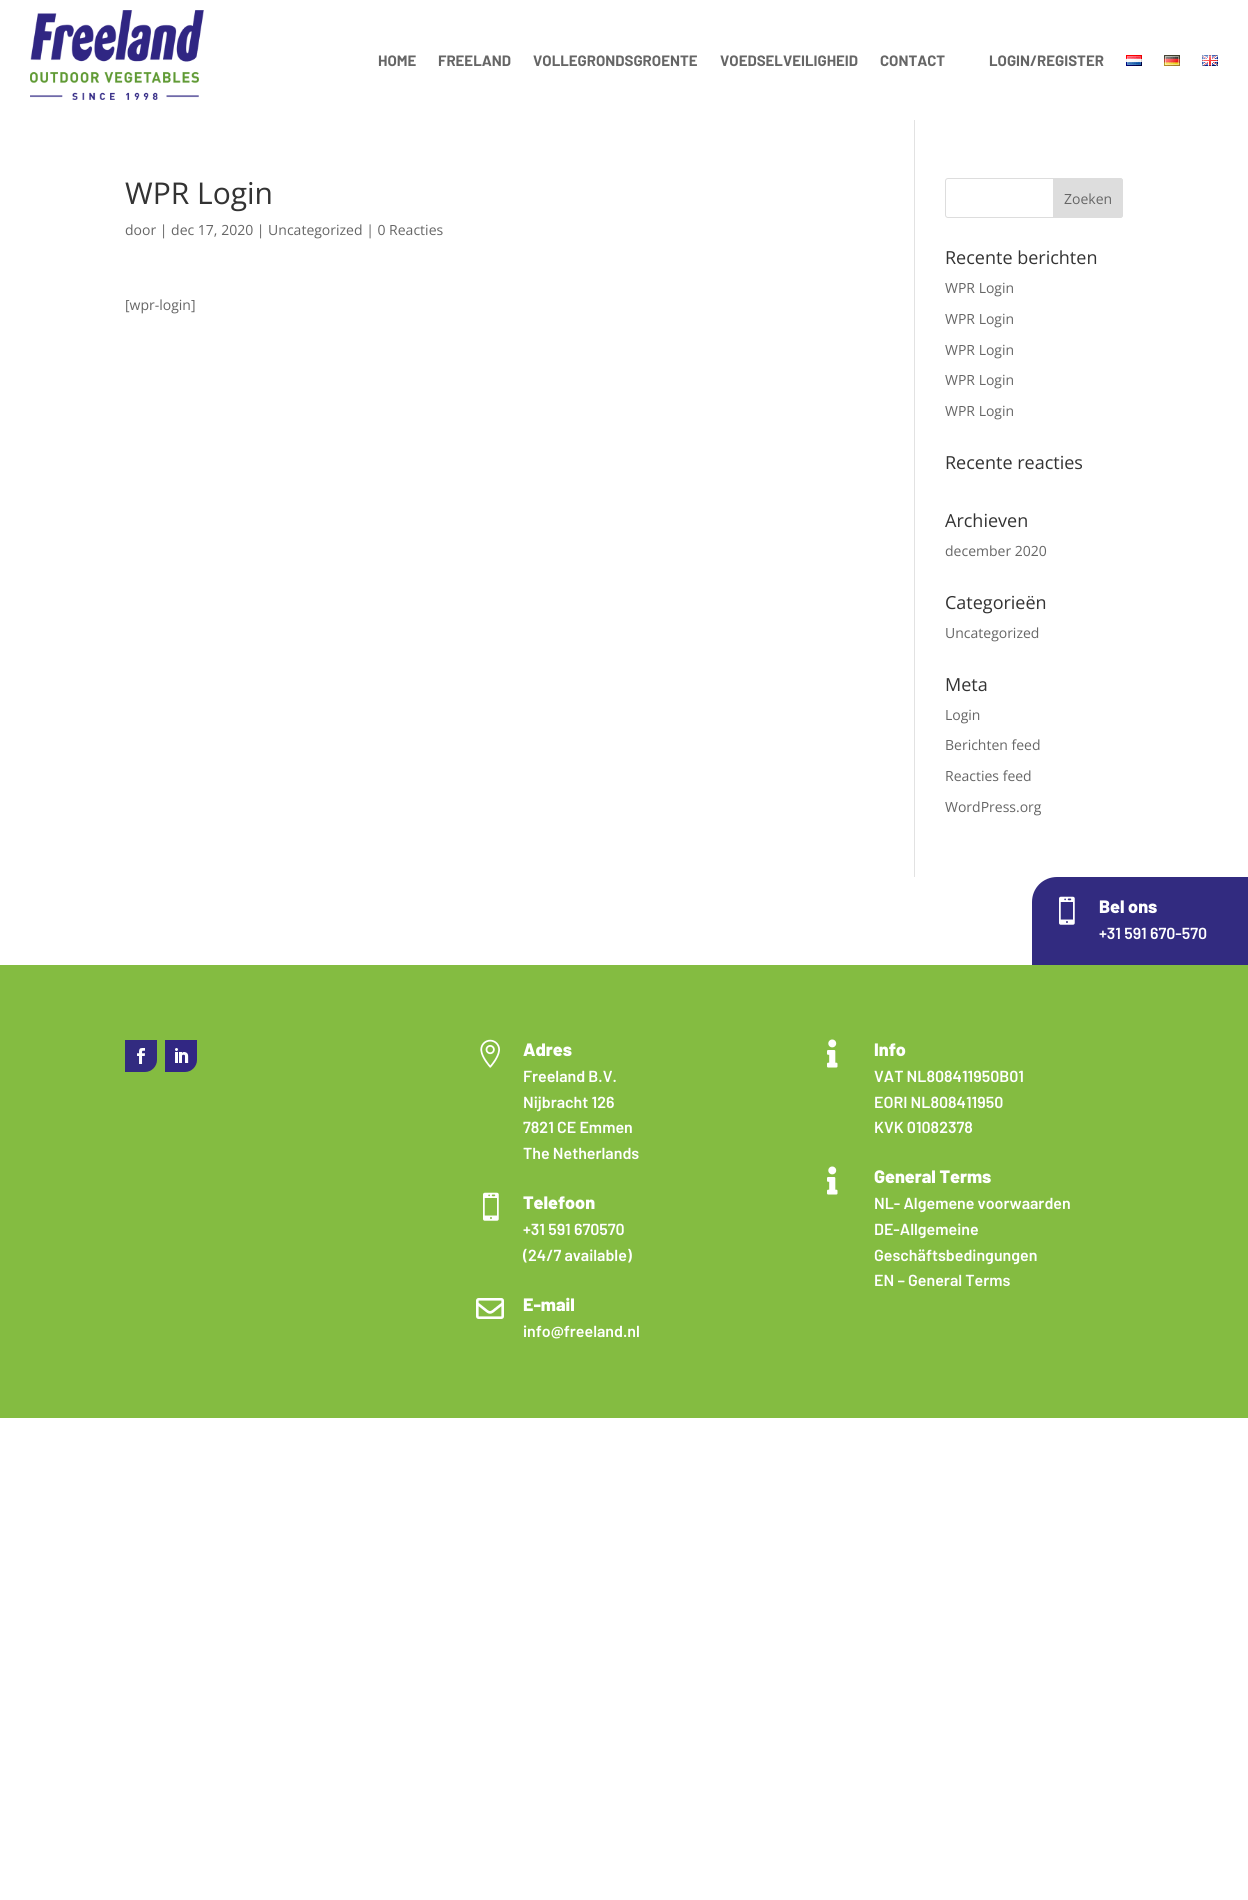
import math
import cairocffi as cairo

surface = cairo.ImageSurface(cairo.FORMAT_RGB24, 1248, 1900)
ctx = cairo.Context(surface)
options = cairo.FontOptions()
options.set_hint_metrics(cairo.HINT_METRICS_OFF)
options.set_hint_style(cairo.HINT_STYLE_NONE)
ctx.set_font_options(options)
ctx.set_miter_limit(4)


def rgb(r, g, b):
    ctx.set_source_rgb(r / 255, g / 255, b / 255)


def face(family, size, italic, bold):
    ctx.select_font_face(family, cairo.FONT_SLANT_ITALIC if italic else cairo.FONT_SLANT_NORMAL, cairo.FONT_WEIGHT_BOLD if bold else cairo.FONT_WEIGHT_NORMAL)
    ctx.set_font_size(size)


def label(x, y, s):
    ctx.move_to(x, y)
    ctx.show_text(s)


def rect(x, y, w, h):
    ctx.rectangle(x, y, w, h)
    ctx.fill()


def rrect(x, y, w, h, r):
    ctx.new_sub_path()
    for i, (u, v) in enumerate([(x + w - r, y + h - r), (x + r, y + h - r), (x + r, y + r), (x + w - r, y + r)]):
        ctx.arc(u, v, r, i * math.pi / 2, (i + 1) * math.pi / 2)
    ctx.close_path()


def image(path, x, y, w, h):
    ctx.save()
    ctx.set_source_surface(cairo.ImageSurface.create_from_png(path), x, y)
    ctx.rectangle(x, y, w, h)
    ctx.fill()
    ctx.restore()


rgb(255, 255, 255)
ctx.paint()
image('image0.png', 30, 10, 174, 90)
face('Barlow', 15, 0, 1)
rgb(102, 102, 102)
label(378, 66, 'HOME')
label(438, 66, 'FREELAND')
label(533, 66, 'VOLLEGRONDSGROENTE')
label(720, 66, 'VOEDSELVEILIGHEID')
label(880, 66, 'CONTACT')
label(989, 66, 'LOGIN/REGISTER')
image('image1.png', 1126, 55, 16, 11)
image('image2.png', 1164, 55, 16, 11)
image('image3.png', 1202, 55, 16, 11)
rgb(226, 226, 226)
rect(914, 120, 1, 757)
face('Open Sans', 30, 0, 0)
rgb(51, 51, 51)
label(125, 204, 'WPR Login')
face('Open Sans', 14, 0, 0)
rgb(102, 102, 102)
label(125, 235, 'door | dec 17, 2020 | Uncategorized | 0 Reacties')
label(125, 310, '[wpr-login]')
rrect(945.5, 178.5, 177, 39, 2.5)
rgb(221, 221, 221)
ctx.set_line_width(1)
ctx.stroke()
ctx.new_path()
ctx.move_to(1053.5, 178.5)
ctx.line_to(1120, 178.5)
ctx.curve_to(1121.5, 178.5, 1122.5, 179.5, 1122.5, 181)
ctx.line_to(1122.5, 215)
ctx.curve_to(1122.5, 216.5, 1121.5, 217.5, 1120, 217.5)
ctx.line_to(1053.5, 217.5)
ctx.close_path()
ctx.fill_preserve()
ctx.stroke()
rgb(102, 102, 102)
label(1064, 204, 'Zoeken')
face('Open Sans', 18, 0, 0)
rgb(51, 51, 51)
label(945, 264, 'Recente berichten')
face('Open Sans', 14, 0, 0)
rgb(102, 102, 102)
label(945, 293, 'WPR Login')
label(945, 324, 'WPR Login')
label(945, 355, 'WPR Login')
label(945, 385, 'WPR Login')
label(945, 416, 'WPR Login')
face('Open Sans', 18, 0, 0)
rgb(51, 51, 51)
label(945, 469, 'Recente reacties')
label(945, 527, 'Archieven')
face('Open Sans', 14, 0, 0)
rgb(102, 102, 102)
label(945, 556, 'december 2020')
face('Open Sans', 18, 0, 0)
rgb(51, 51, 51)
label(945, 609, 'Categorieën')
face('Open Sans', 14, 0, 0)
rgb(102, 102, 102)
label(945, 638, 'Uncategorized')
face('Open Sans', 18, 0, 0)
rgb(51, 51, 51)
label(945, 691, 'Meta')
face('Open Sans', 14, 0, 0)
rgb(102, 102, 102)
label(945, 720, 'Login')
label(945, 750, 'Berichten feed')
label(945, 781, 'Reacties feed')
label(945, 812, 'WordPress.org')
rgb(50, 43, 128)
ctx.new_path()
ctx.move_to(1057, 877)
ctx.line_to(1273, 877)
ctx.line_to(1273, 965)
ctx.line_to(1032, 965)
ctx.line_to(1032, 902)
ctx.curve_to(1032, 888, 1043, 877, 1057, 877)
ctx.close_path()
ctx.fill()
image('image4.png', 1059, 896, 16, 29)
face('Barlow ExtraBold', 18, 0, 0)
rgb(255, 255, 255)
label(1099, 913, 'Bel ons')
face('Barlow SemiBold', 16, 0, 0)
label(1099, 939, '+31 591 670-570')
rgb(132, 188, 65)
rect(0, 965, 1248, 453)
rgb(50, 43, 128)
ctx.new_path()
ctx.move_to(125, 1040)
ctx.line_to(157, 1040)
ctx.line_to(157, 1060)
ctx.curve_to(157, 1066.5, 151.5, 1072, 145, 1072)
ctx.line_to(125, 1072)
ctx.close_path()
ctx.fill()
image('image5.png', 137, 1048, 8, 16)
rgb(49, 39, 131)
ctx.new_path()
ctx.move_to(165, 1040)
ctx.line_to(197, 1040)
ctx.line_to(197, 1060)
ctx.curve_to(197, 1066.5, 191.5, 1072, 185, 1072)
ctx.line_to(165, 1072)
ctx.close_path()
ctx.fill()
image('image6.png', 175, 1048, 14, 15)
image('image7.png', 480, 1039, 20, 29)
face('Barlow ExtraBold', 18, 0, 0)
rgb(255, 255, 255)
label(523, 1056, 'Adres')
face('Barlow SemiBold', 16, 0, 0)
label(523, 1082, 'Freeland B.V.')
label(523, 1108, 'Nijbracht 126')
label(523, 1133, '7821 CE Emmen')
label(523, 1159, 'The Netherlands')
image('image8.png', 483, 1192, 16, 29)
face('Barlow ExtraBold', 18, 0, 0)
label(523, 1209, 'Telefoon')
face('Barlow SemiBold', 16, 0, 0)
label(523, 1235, '+31 591 670570')
label(523, 1261, '(24/7 available)')
image('image9.png', 476, 1298, 28, 21)
face('Barlow ExtraBold', 18, 0, 0)
label(523, 1311, 'E-mail')
face('Barlow SemiBold', 16, 0, 0)
label(523, 1337, 'info@freeland.nl')
image('image10.png', 827, 1039, 11, 29)
face('Barlow ExtraBold', 18, 0, 0)
label(874, 1056, 'Info')
face('Barlow SemiBold', 16, 0, 0)
label(874, 1082, 'VAT NL808411950B01')
label(874, 1108, 'EORI NL808411950')
label(874, 1133, 'KVK 01082378')
image('image10.png', 827, 1166, 11, 29)
face('Barlow ExtraBold', 18, 0, 0)
label(874, 1183, 'General Terms')
face('Barlow SemiBold', 16, 0, 0)
label(874, 1209, 'NL- Algemene voorwaarden')
label(874, 1235, 'DE-Allgemeine')
label(874, 1261, 'Geschäftsbedingungen')
label(874, 1286, 'EN – General Terms')
surface.write_to_png('render.png')
